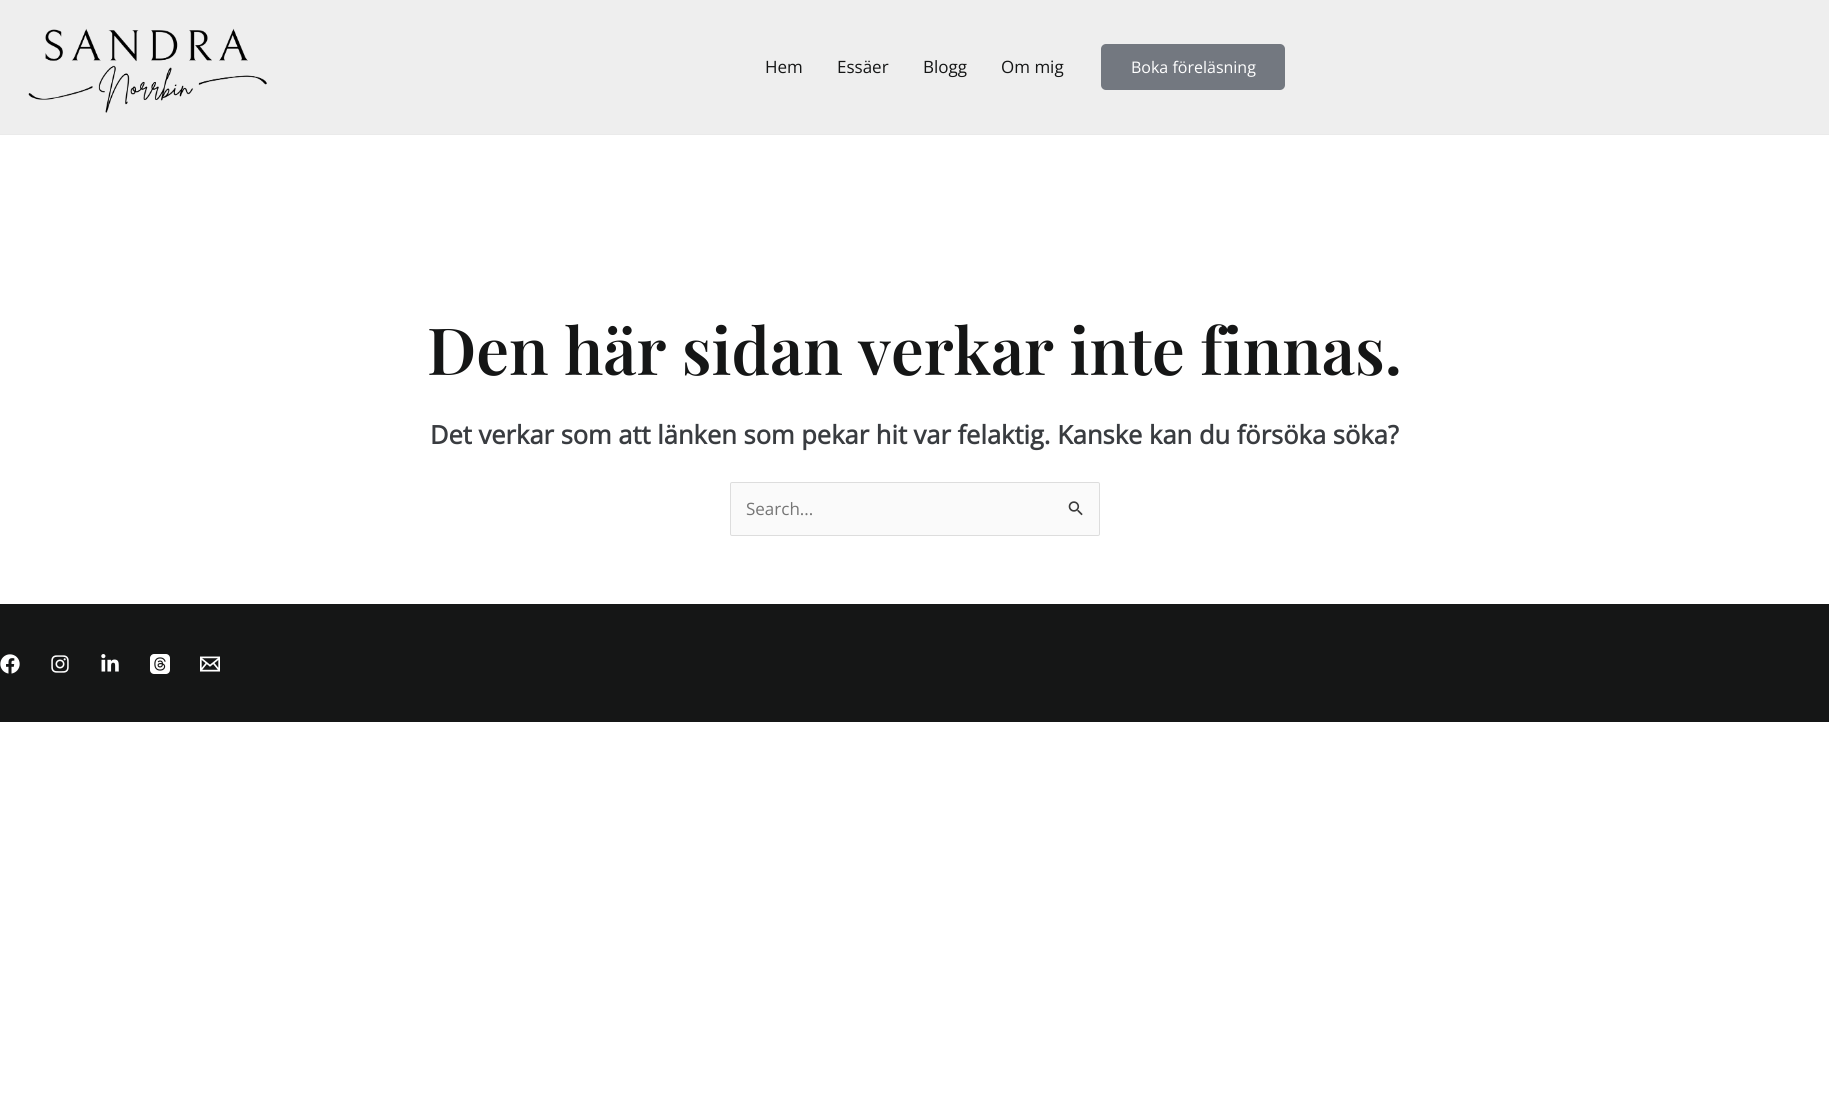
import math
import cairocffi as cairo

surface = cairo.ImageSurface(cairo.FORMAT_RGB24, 1829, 1117)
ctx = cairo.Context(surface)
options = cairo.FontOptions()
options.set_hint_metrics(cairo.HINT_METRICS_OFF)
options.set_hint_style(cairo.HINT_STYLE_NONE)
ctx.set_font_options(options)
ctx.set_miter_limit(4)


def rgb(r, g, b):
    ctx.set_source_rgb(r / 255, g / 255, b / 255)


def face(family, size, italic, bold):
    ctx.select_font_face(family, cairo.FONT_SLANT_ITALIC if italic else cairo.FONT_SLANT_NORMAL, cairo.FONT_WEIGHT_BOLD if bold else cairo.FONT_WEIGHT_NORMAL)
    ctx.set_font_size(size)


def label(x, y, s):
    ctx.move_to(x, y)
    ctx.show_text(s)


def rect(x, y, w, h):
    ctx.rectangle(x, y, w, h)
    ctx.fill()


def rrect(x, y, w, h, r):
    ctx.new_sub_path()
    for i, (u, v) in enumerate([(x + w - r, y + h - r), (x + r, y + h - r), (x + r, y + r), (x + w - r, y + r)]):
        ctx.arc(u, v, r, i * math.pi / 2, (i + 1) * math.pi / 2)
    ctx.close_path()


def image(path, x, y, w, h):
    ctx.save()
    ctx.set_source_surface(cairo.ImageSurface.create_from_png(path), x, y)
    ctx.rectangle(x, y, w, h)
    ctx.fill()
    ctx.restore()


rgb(255, 255, 255)
ctx.paint()
rgb(238, 238, 238)
rect(0, 0, 1829, 134)
rgb(234, 234, 234)
rect(0, 134, 1829, 1)
image('image0.png', 28, 28, 239, 85)
face('Open Sans', 17, 0, 0)
rgb(21, 22, 22)
label(765, 73, 'Hem')
label(837, 73, 'Essäer')
label(923, 73, 'Blogg')
label(1001, 73, 'Om mig')
rgb(115, 120, 128)
rrect(1101, 44, 184, 46, 5)
ctx.fill()
face('Open Sans', 16, 0, 0)
rgb(255, 255, 255)
label(1131, 73, 'Boka föreläsning')
face('Playfair Display SemiBold', 65, 0, 0)
rgb(21, 22, 22)
label(427, 375, 'Den här sidan verkar inte finnas.')
face('Open Sans', 25.5, 0, 1)
rgb(57, 60, 64)
label(430, 444, 'Det verkar som att länken som pekar hit var felaktig. Kanske kan du försöka söka?')
rgb(250, 250, 250)
rrect(730.5, 482.5, 369, 53, 1.5)
ctx.fill_preserve()
rgb(221, 221, 221)
ctx.set_line_width(1)
ctx.stroke()
face('Open Sans', 17, 0, 0)
rgb(117, 117, 117)
label(746, 515, 'Search...')
image('image1.png', 1068, 501, 15, 15)
rgb(21, 22, 22)
rect(0, 604, 1829, 118)
image('image2.png', 0, 654, 20, 20)
image('image3.png', 51, 655, 18, 18)
image('image4.png', 101, 654, 18, 18)
image('image5.png', 150, 654, 20, 20)
image('image6.png', 200, 656, 20, 16)
surface.write_to_png('render.png')
